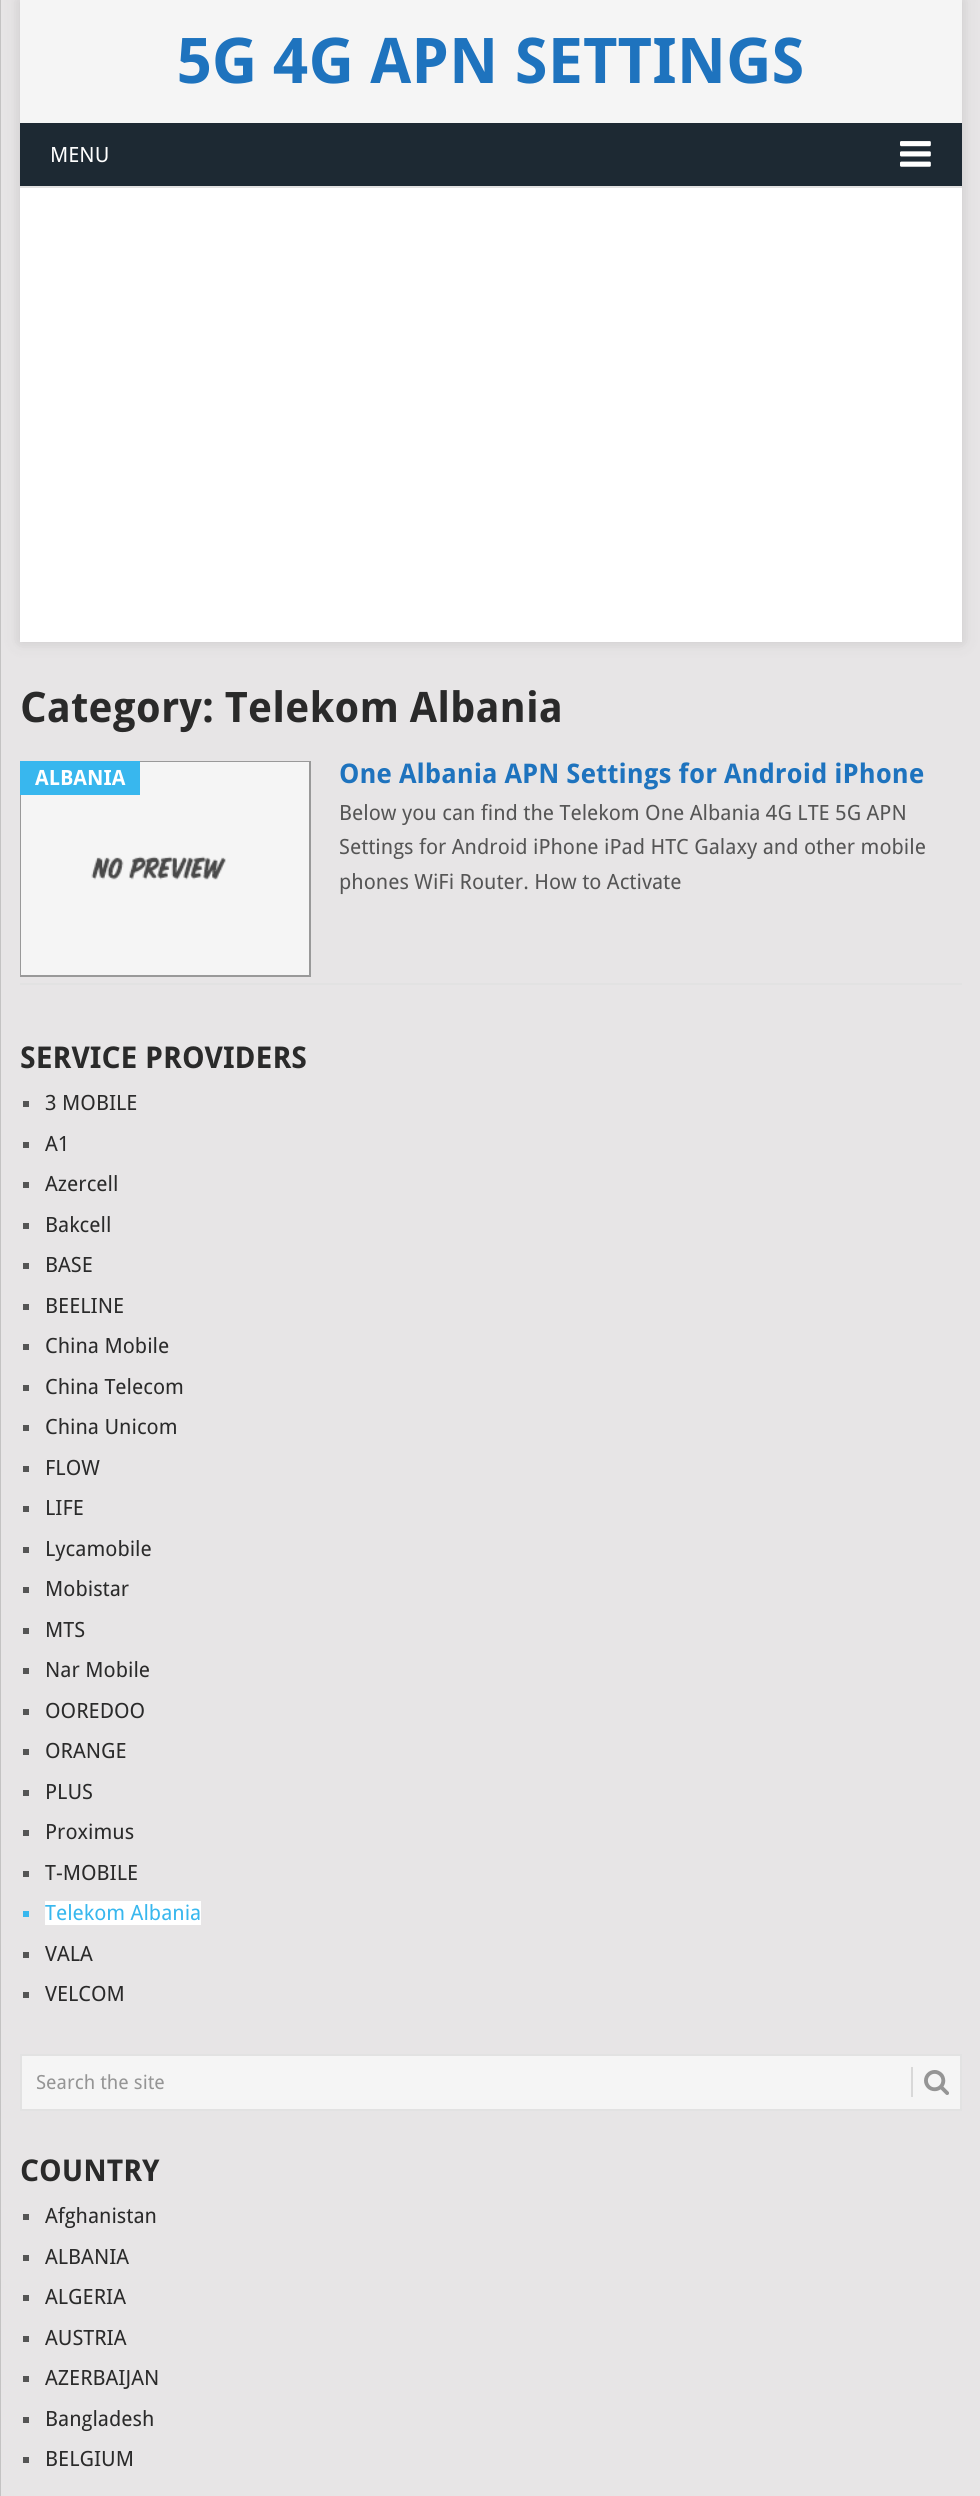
import math
import cairocffi as cairo

surface = cairo.ImageSurface(cairo.FORMAT_RGB24, 980, 2496)
ctx = cairo.Context(surface)
options = cairo.FontOptions()
options.set_hint_metrics(cairo.HINT_METRICS_OFF)
options.set_hint_style(cairo.HINT_STYLE_NONE)
ctx.set_font_options(options)
ctx.set_miter_limit(4)


def rgb(r, g, b):
    ctx.set_source_rgb(r / 255, g / 255, b / 255)


def face(family, size, italic, bold):
    ctx.select_font_face(family, cairo.FONT_SLANT_ITALIC if italic else cairo.FONT_SLANT_NORMAL, cairo.FONT_WEIGHT_BOLD if bold else cairo.FONT_WEIGHT_NORMAL)
    ctx.set_font_size(size)


def label(x, y, s):
    ctx.move_to(x, y)
    ctx.show_text(s)


def rect(x, y, w, h):
    ctx.rectangle(x, y, w, h)
    ctx.fill()


def rrect(x, y, w, h, r):
    ctx.new_sub_path()
    for i, (u, v) in enumerate([(x + w - r, y + h - r), (x + r, y + h - r), (x + r, y + r), (x + w - r, y + r)]):
        ctx.arc(u, v, r, i * math.pi / 2, (i + 1) * math.pi / 2)
    ctx.close_path()


def soft_shadow(x, y, w, h, r, blur, alpha):
    ctx.push_group_with_content(cairo.CONTENT_ALPHA)
    ctx.set_operator(cairo.OPERATOR_SOURCE)
    for i in range(15, -16, -2):
        e = blur * i / 6
        if min(w, h) + 2 * e > 0:
            ctx.set_source_rgba(0, 0, 0, alpha * math.erfc((i - 1) / 8.5) / 2)
            rrect(x - e, y - e, w + 2 * e, h + 2 * e, max(0, min(r + e + blur * .6, min(w, h) / 2 + e)))
            ctx.fill()
    ctx.mask(ctx.pop_group())


def image(path, x, y, w, h):
    ctx.save()
    ctx.set_source_surface(cairo.ImageSurface.create_from_png(path), x, y)
    ctx.rectangle(x, y, w, h)
    ctx.fill()
    ctx.restore()


rgb(231, 229, 230)
ctx.paint()
rgb(50, 50, 50)
soft_shadow(20, 0, 942, 642, 0, 7.5, 0.17)
rgb(255, 255, 255)
rect(20, 188, 942, 454)
rgb(245, 245, 245)
rect(20, 0, 942, 123)
rgb(196, 195, 195)
rect(0, 0, 1, 2496)
face('Droid Sans', 63, 0, 1)
rgb(30, 115, 190)
label(177, 83, '5G 4G APN SETTINGS')
rgb(29, 41, 51)
rect(20, 123, 942, 63)
face('Droid Sans', 21, 0, 0)
rgb(255, 255, 255)
label(50, 162, 'MENU')
image('image0.png', 900, 141, 31, 26)
rgb(226, 226, 226)
rect(20, 186, 942, 2)
face('Droid Sans', 42, 0, 1)
rgb(42, 42, 42)
label(20, 722, 'Category: Telekom Albania')
rgb(226, 226, 226)
rect(20, 983, 942, 2)
ctx.rectangle(21, 762, 289, 214)
rgb(153, 153, 153)
ctx.stroke()
image('image1.png', 21, 762, 288, 213)
rgb(56, 183, 238)
rect(20, 761, 120, 34)
face('Droid Sans', 21, 0, 1)
rgb(255, 255, 255)
label(35, 785, 'ALBANIA')
face('Droid Sans', 27, 0, 1)
rgb(30, 115, 190)
label(339, 783, 'One Albania APN Settings for Android iPhone')
face('Droid Sans', 21, 0, 0)
rgb(85, 85, 85)
label(339, 820, 'Below you can find the Telekom One Albania 4G LTE 5G APN')
label(339, 854, 'Settings for Android iPhone iPad HTC Galaxy and other mobile')
label(339, 889, 'phones WiFi Router. How to Activate')
face('Droid Sans', 30, 0, 1)
rgb(42, 42, 42)
label(20, 1068, 'SERVICE PROVIDERS')
rgb(85, 85, 85)
rect(23, 1101, 6, 6)
face('Droid Sans', 21, 0, 0)
rgb(42, 42, 42)
label(45, 1110, '3 MOBILE')
rgb(85, 85, 85)
rect(23, 1142, 6, 6)
rgb(42, 42, 42)
label(45, 1151, 'A1')
rgb(85, 85, 85)
rect(23, 1182, 6, 6)
rgb(42, 42, 42)
label(45, 1191, 'Azercell')
rgb(85, 85, 85)
rect(23, 1223, 6, 6)
rgb(42, 42, 42)
label(45, 1232, 'Bakcell')
rgb(85, 85, 85)
rect(23, 1263, 6, 6)
rgb(42, 42, 42)
label(45, 1272, 'BASE')
rgb(85, 85, 85)
rect(23, 1304, 6, 6)
rgb(42, 42, 42)
label(45, 1313, 'BEELINE')
rgb(85, 85, 85)
rect(23, 1344, 6, 6)
rgb(42, 42, 42)
label(45, 1353, 'China Mobile')
rgb(85, 85, 85)
rect(23, 1385, 6, 6)
rgb(42, 42, 42)
label(45, 1394, 'China Telecom')
rgb(85, 85, 85)
rect(23, 1425, 6, 6)
rgb(42, 42, 42)
label(45, 1434, 'China Unicom')
rgb(85, 85, 85)
rect(23, 1466, 6, 6)
rgb(42, 42, 42)
label(45, 1475, 'FLOW')
rgb(85, 85, 85)
rect(23, 1506, 6, 6)
rgb(42, 42, 42)
label(45, 1515, 'LIFE')
rgb(85, 85, 85)
rect(23, 1547, 6, 6)
rgb(42, 42, 42)
label(45, 1556, 'Lycamobile')
rgb(85, 85, 85)
rect(23, 1587, 6, 6)
rgb(42, 42, 42)
label(45, 1596, 'Mobistar')
rgb(85, 85, 85)
rect(23, 1628, 6, 6)
rgb(42, 42, 42)
label(45, 1637, 'MTS')
rgb(85, 85, 85)
rect(23, 1668, 6, 6)
rgb(42, 42, 42)
label(45, 1677, 'Nar Mobile')
rgb(85, 85, 85)
rect(23, 1709, 6, 6)
rgb(42, 42, 42)
label(45, 1718, 'OOREDOO')
rgb(85, 85, 85)
rect(23, 1749, 6, 6)
rgb(42, 42, 42)
label(45, 1758, 'ORANGE')
rgb(85, 85, 85)
rect(23, 1790, 6, 6)
rgb(42, 42, 42)
label(45, 1799, 'PLUS')
rgb(85, 85, 85)
rect(23, 1830, 6, 6)
rgb(42, 42, 42)
label(45, 1839, 'Proximus')
rgb(85, 85, 85)
rect(23, 1871, 6, 6)
rgb(42, 42, 42)
label(45, 1880, 'T-MOBILE')
rgb(56, 183, 238)
rect(23, 1911, 6, 6)
rgb(255, 255, 255)
rect(45, 1901, 156, 24)
rgb(56, 183, 238)
label(45, 1920, 'Telekom Albania')
rgb(85, 85, 85)
rect(23, 1952, 6, 6)
rgb(42, 42, 42)
label(45, 1961, 'VALA')
rgb(85, 85, 85)
rect(23, 1992, 6, 6)
rgb(42, 42, 42)
label(45, 2001, 'VELCOM')
rgb(245, 245, 245)
ctx.rectangle(21, 2055, 940, 55)
ctx.fill_preserve()
rgb(226, 226, 226)
ctx.stroke()
face('Droid Sans', 19.5, 0, 0)
rgb(149, 149, 149)
label(36, 2089, 'Search the site')
rgb(216, 216, 216)
rect(911, 2067, 2, 30)
image('image2.png', 924, 2070, 25, 25)
face('Droid Sans', 30, 0, 1)
rgb(42, 42, 42)
label(20, 2181, 'COUNTRY')
rgb(85, 85, 85)
rect(23, 2214, 6, 6)
face('Droid Sans', 21, 0, 0)
rgb(42, 42, 42)
label(45, 2223, 'Afghanistan')
rgb(85, 85, 85)
rect(23, 2255, 6, 6)
rgb(42, 42, 42)
label(45, 2264, 'ALBANIA')
rgb(85, 85, 85)
rect(23, 2295, 6, 6)
rgb(42, 42, 42)
label(45, 2304, 'ALGERIA')
rgb(85, 85, 85)
rect(23, 2336, 6, 6)
rgb(42, 42, 42)
label(45, 2345, 'AUSTRIA')
rgb(85, 85, 85)
rect(23, 2376, 6, 6)
rgb(42, 42, 42)
label(45, 2385, 'AZERBAIJAN')
rgb(85, 85, 85)
rect(23, 2417, 6, 6)
rgb(42, 42, 42)
label(45, 2426, 'Bangladesh')
rgb(85, 85, 85)
rect(23, 2457, 6, 6)
rgb(42, 42, 42)
label(45, 2466, 'BELGIUM')
surface.write_to_png('render.png')
